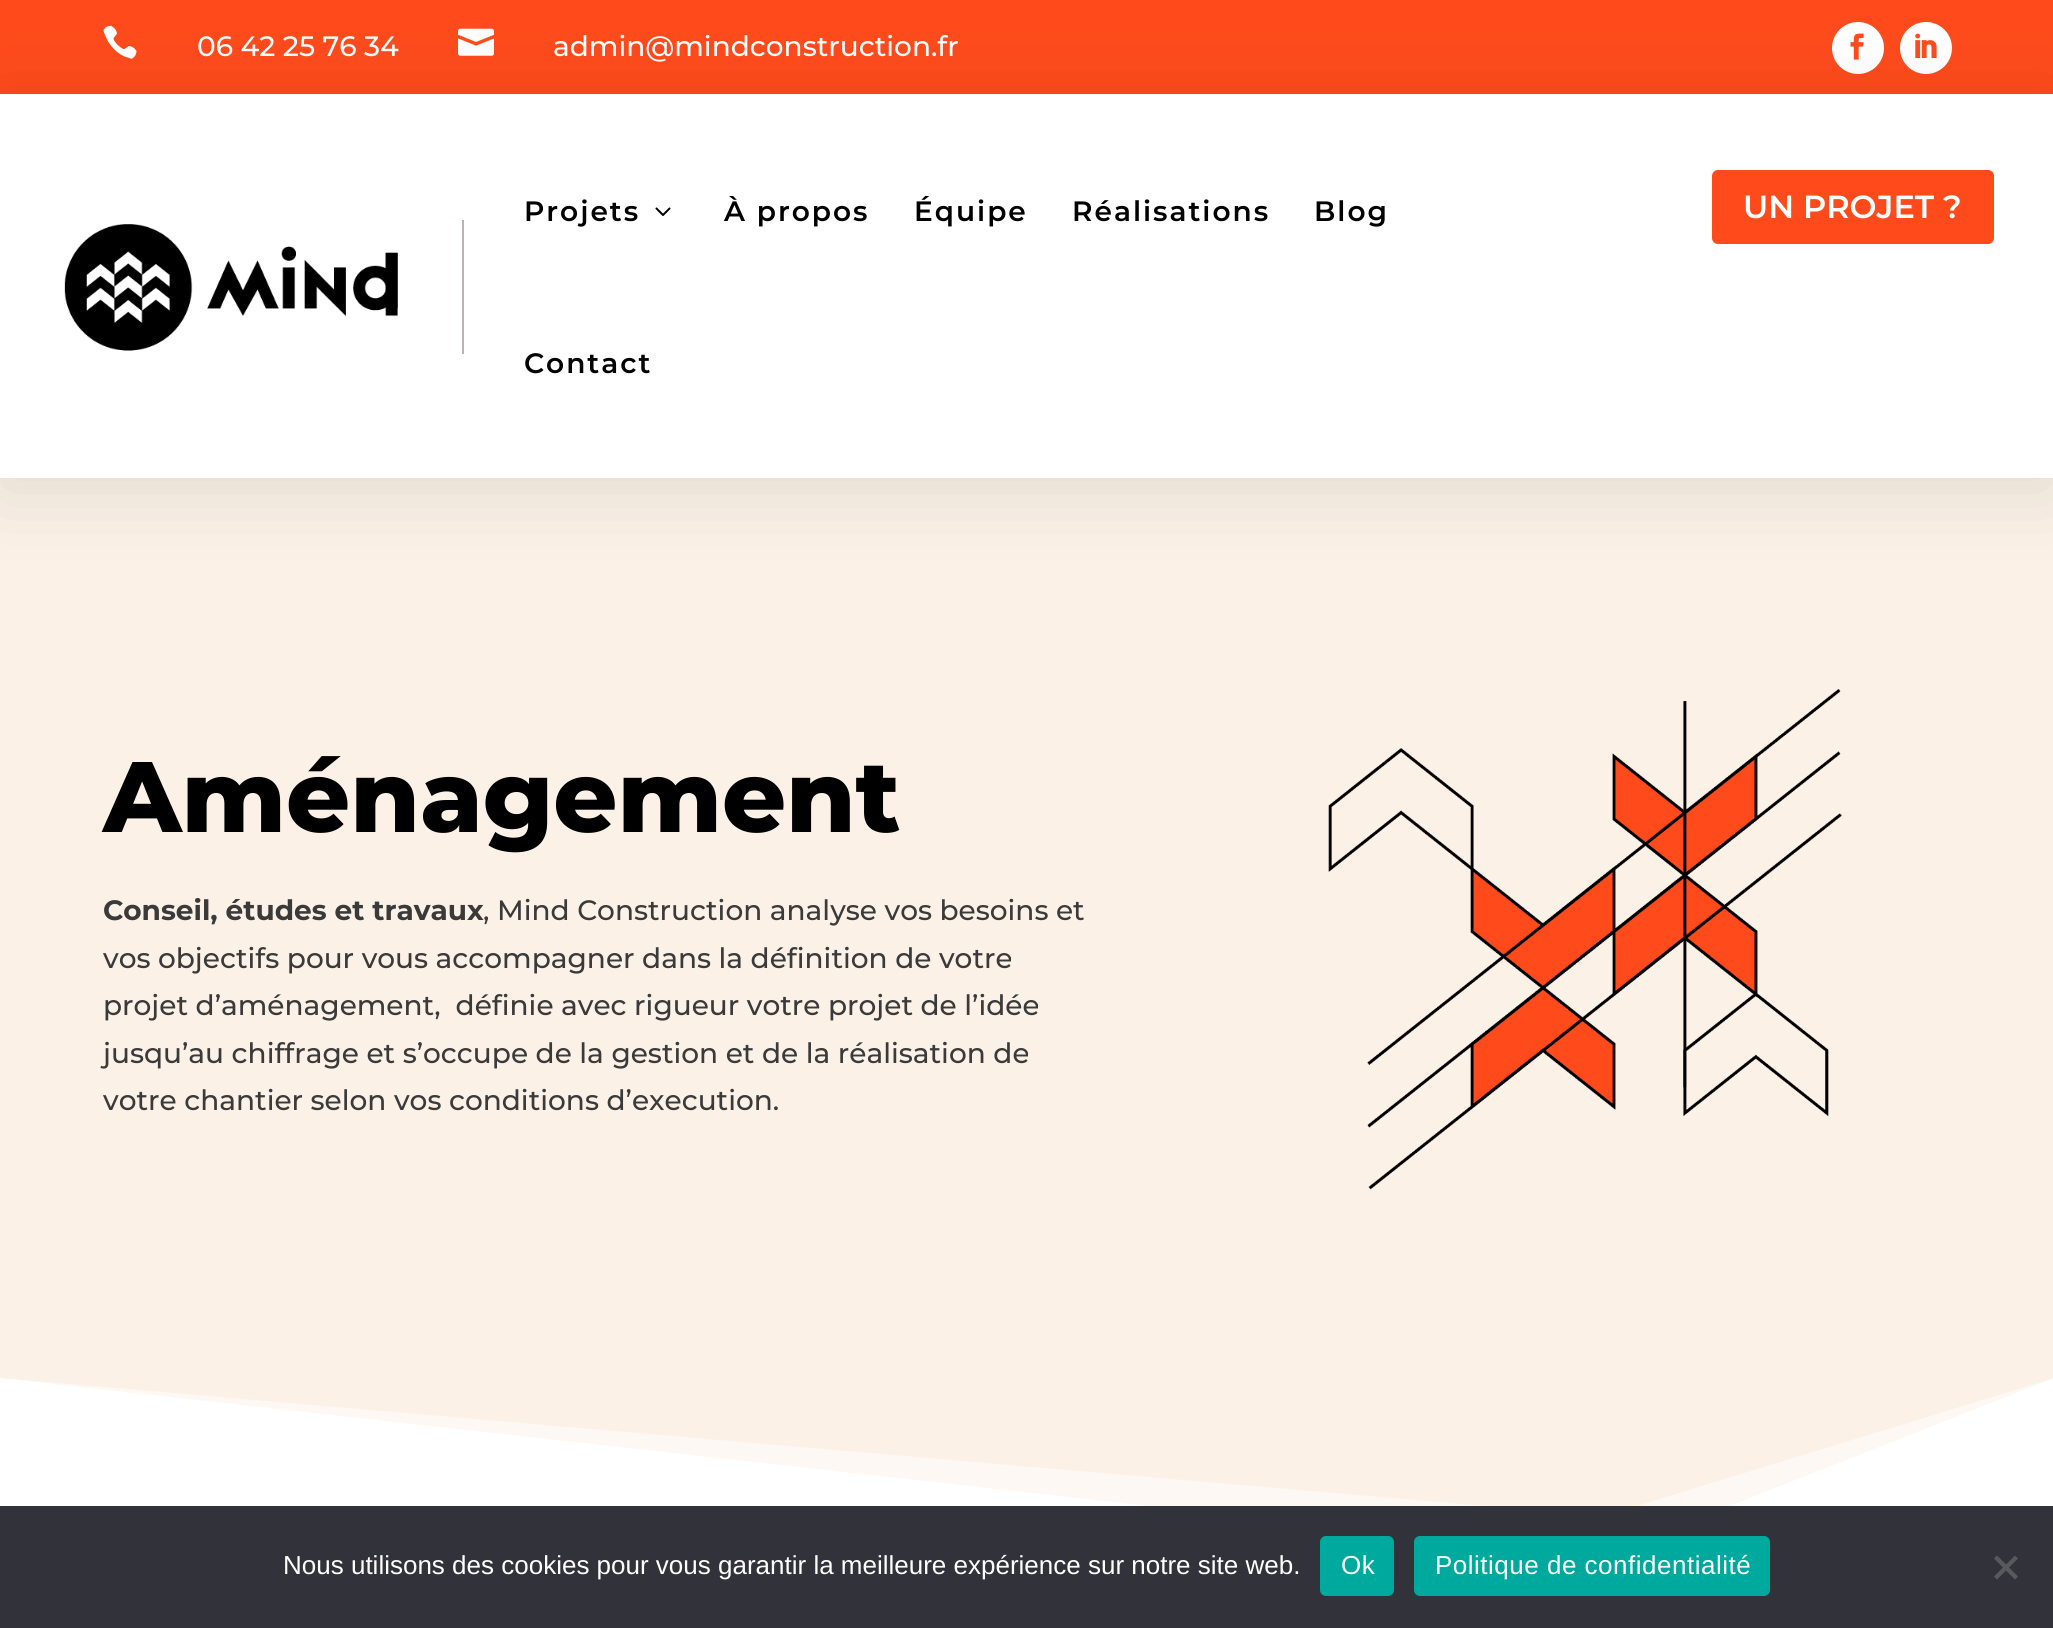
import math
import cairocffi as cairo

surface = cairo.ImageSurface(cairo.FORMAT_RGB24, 2053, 1628)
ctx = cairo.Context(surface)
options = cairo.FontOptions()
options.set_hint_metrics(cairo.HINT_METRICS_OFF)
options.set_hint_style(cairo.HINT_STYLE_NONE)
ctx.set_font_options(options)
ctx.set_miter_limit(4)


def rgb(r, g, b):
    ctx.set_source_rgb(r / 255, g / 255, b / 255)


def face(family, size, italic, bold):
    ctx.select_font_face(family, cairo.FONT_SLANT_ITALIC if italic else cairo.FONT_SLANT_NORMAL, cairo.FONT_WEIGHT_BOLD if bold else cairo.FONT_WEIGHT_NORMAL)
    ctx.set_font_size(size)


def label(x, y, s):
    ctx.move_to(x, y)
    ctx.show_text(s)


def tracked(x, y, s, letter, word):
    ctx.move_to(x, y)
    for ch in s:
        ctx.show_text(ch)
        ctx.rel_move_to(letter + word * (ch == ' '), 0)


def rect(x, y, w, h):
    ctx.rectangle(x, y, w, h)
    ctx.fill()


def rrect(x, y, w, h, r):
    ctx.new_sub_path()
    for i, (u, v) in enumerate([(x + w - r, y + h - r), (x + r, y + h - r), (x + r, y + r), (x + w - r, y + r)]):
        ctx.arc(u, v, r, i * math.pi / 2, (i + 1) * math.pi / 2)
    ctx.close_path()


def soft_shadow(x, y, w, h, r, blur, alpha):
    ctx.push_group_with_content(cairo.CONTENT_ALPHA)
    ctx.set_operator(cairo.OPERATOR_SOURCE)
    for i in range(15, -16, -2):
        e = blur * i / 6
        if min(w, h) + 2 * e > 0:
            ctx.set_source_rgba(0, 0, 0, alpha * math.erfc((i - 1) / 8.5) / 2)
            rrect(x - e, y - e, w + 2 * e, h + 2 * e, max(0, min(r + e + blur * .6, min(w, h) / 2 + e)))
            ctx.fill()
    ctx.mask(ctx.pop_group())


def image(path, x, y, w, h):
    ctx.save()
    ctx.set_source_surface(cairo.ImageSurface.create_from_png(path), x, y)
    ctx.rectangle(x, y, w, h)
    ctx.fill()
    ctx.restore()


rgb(251, 241, 231)
ctx.paint()
rgb(255, 75, 28)
rect(0, 0, 2053, 94)
image('image0.png', 103, 25, 34, 34)
face('Montserrat Medium', 28, 0, 0)
rgb(255, 255, 255)
label(197, 56, '06 42 25 76 34')
image('image1.png', 458, 28, 36, 28)
label(553, 56, 'admin@mindconstruction.fr')
ctx.new_path()
ctx.arc(1858, 48, 26, 0, 2 * math.pi)
ctx.fill()
image('image2.png', 1850, 33, 14, 27)
ctx.arc(1926, 48, 26, 0, 2 * math.pi)
ctx.fill()
image('image3.png', 1915, 33, 22, 25)
rgb(0, 0, 0)
soft_shadow(0, 104, 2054, 384, 0, 40, 0.11)
rgb(255, 255, 255)
rect(0, 94, 2053, 384)
rgb(189, 177, 177)
rect(462, 220, 2, 134)
image('image4.png', 64, 224, 334, 127)
face('Montserrat SemiBold', 28, 0, 0)
rgb(0, 0, 0)
tracked(524, 221, 'Projets', 2, 0)
image('image5.png', 655, 207, 16, 9)
tracked(724, 221, 'À propos', 2, 0)
tracked(914, 221, 'Équipe', 2, 0)
tracked(1072, 221, 'Réalisations', 2, 0)
tracked(1314, 221, 'Blog', 2, 0)
tracked(524, 373, 'Contact', 2, 0)
rgb(255, 75, 28)
rrect(1712, 170, 282, 74, 6)
ctx.fill()
face('Montserrat SemiBold', 32, 0, 0)
rgb(255, 255, 255)
label(1743, 218, 'UN PROJET ?')
face('Montserrat ExtraBold', 100, 0, 0)
rgb(0, 0, 0)
label(103, 832, 'Aménagement')
face('Montserrat', 28, 0, 1)
rgb(58, 58, 58)
label(103, 920, 'Conseil, études et travaux')
face('Montserrat Medium', 28, 0, 0)
label(483, 920, ', Mind Construction analyse vos besoins et')
label(103, 968, 'vos objectifs pour vous accompagner dans la définition de votre')
label(103, 1015, 'projet d’aménagement,  définie avec rigueur votre projet de l’idée')
label(103, 1063, 'jusqu’au chiffrage et s’occupe de la gestion et de la réalisation de')
label(103, 1110, 'votre chantier selon vos conditions d’execution.')
image('image6.png', 1328, 689, 514, 501)
rgb(253, 248, 243)
ctx.new_path()
ctx.move_to(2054, 1378)
ctx.line_to(1627, 1509)
ctx.curve_to(1611, 1514, 1594, 1515, 1578, 1514)
ctx.line_to(0, 1378)
ctx.line_to(0, 1578)
ctx.line_to(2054, 1578)
ctx.close_path()
ctx.fill()
rgb(255, 255, 255)
ctx.new_path()
ctx.move_to(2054, 1378)
ctx.line_to(1633, 1544)
ctx.curve_to(1614, 1552, 1592, 1555, 1571, 1553)
ctx.line_to(0, 1378)
ctx.line_to(0, 1578)
ctx.line_to(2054, 1578)
ctx.close_path()
ctx.fill()
rgb(50, 50, 58)
rect(0, 1506, 2053, 122)
face('Liberation Sans', 26, 0, 0)
rgb(255, 255, 255)
label(283, 1574, 'Nous utilisons des cookies pour vous garantir la meilleure expérience sur notre site web.')
rgb(0, 169, 157)
rrect(1320, 1536, 74, 60, 6)
ctx.fill()
rgb(255, 255, 255)
tracked(1341, 1574, 'Ok', 0.5, 0)
rgb(0, 169, 157)
rrect(1414, 1536, 356, 60, 6)
ctx.fill()
rgb(255, 255, 255)
tracked(1435, 1574, 'Politique de confidentialité', 0.5, 0)
rgb(89, 89, 93)
ctx.new_path()
ctx.move_to(2015, 1555.5)
ctx.line_to(2018, 1558.5)
ctx.line_to(1997, 1579.5)
ctx.line_to(1994, 1576.5)
ctx.close_path()
ctx.fill()
ctx.new_path()
ctx.move_to(1994, 1558.5)
ctx.line_to(1997, 1555.5)
ctx.line_to(2018, 1576.5)
ctx.line_to(2015, 1579.5)
ctx.close_path()
ctx.fill()
surface.write_to_png('render.png')
